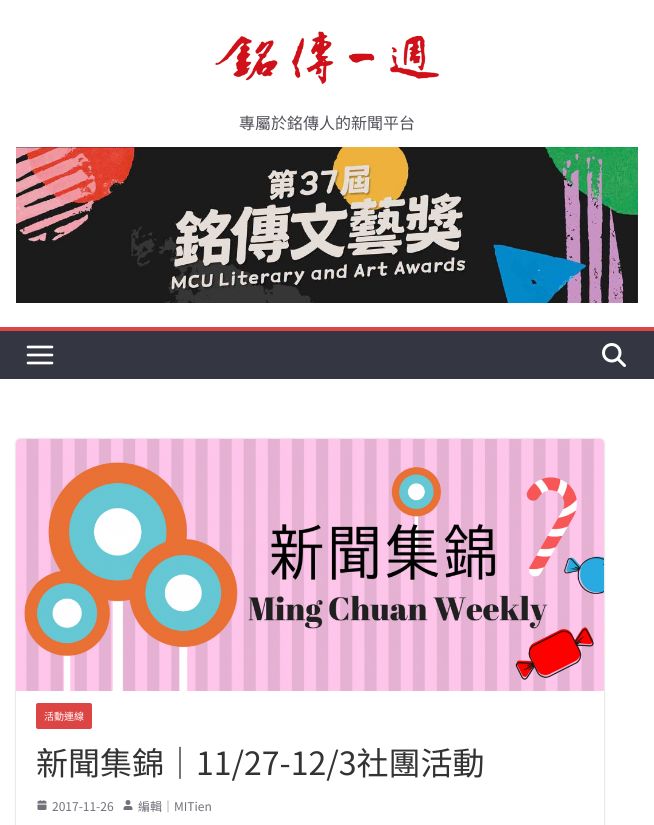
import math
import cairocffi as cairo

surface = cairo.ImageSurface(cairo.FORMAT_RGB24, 654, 825)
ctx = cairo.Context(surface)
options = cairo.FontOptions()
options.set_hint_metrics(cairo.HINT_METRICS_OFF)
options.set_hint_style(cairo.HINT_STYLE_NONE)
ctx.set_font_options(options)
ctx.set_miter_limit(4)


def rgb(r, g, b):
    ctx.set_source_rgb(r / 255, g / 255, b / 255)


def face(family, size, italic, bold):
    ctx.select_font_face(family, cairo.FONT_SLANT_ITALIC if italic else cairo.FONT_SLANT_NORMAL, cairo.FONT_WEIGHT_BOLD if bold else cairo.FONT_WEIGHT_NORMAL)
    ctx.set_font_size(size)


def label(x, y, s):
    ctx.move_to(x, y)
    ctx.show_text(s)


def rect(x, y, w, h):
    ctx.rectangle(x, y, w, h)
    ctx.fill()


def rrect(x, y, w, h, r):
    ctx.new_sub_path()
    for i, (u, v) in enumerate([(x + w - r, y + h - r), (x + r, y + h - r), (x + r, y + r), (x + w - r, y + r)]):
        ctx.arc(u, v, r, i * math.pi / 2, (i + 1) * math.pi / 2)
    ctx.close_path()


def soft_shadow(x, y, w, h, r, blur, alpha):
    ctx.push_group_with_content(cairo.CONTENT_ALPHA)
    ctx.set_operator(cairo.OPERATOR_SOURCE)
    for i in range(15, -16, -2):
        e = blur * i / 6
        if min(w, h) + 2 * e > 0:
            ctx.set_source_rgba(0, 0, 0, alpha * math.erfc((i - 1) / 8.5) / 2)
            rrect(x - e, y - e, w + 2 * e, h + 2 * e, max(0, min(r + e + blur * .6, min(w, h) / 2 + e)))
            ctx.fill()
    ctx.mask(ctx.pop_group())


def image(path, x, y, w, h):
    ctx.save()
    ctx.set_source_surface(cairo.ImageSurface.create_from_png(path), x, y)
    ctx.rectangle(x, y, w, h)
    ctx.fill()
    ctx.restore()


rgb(255, 255, 255)
ctx.paint()
image('image0.png', 215, 31, 224, 54)
face('Noto Sans TC', 16, 0, 0)
rgb(82, 82, 91)
label(239, 129, '專屬於銘傳人的新聞平台')
image('image1.png', 16, 147, 622, 156)
rgb(52, 54, 66)
rect(0, 331, 654, 48)
rgb(221, 68, 68)
rect(0, 327, 654, 4)
image('image2.png', 26, 345, 28, 20)
image('image3.png', 602, 343, 24, 24)
ctx.save()
ctx.set_fill_rule(cairo.FILL_RULE_EVEN_ODD)
ctx.new_path()
ctx.move_to(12, 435)
ctx.line_to(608, 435)
ctx.line_to(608, 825)
ctx.line_to(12, 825)
ctx.close_path()
ctx.move_to(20, 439)
ctx.line_to(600, 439)
ctx.curve_to(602, 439, 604, 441, 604, 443)
ctx.line_to(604, 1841)
ctx.curve_to(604, 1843, 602, 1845, 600, 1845)
ctx.line_to(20, 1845)
ctx.curve_to(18, 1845, 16, 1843, 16, 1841)
ctx.line_to(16, 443)
ctx.curve_to(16, 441, 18, 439, 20, 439)
ctx.close_path()
ctx.clip()
rgb(0, 0, 0)
soft_shadow(16, 439, 588, 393, 4, 1, 0.24)
ctx.restore()
image('image4.png', 16, 439, 588, 252)
rrect(36, 703, 56, 26, 2)
ctx.fill()
face('Noto Sans TC', 10, 0, 0)
rgb(255, 255, 255)
label(44, 720, '活動連線')
face('Noto Sans TC', 32, 0, 0)
rgb(51, 51, 51)
label(36, 775, '新聞集錦｜11/27-12/3社團活動')
image('image5.png', 37, 800, 10, 10)
face('Noto Sans TC', 12, 0, 0)
rgb(113, 113, 122)
label(52, 811, '2017-11-26')
image('image6.png', 123, 800, 10, 10)
label(138, 811, '編輯｜MITien')
surface.write_to_png('render.png')
